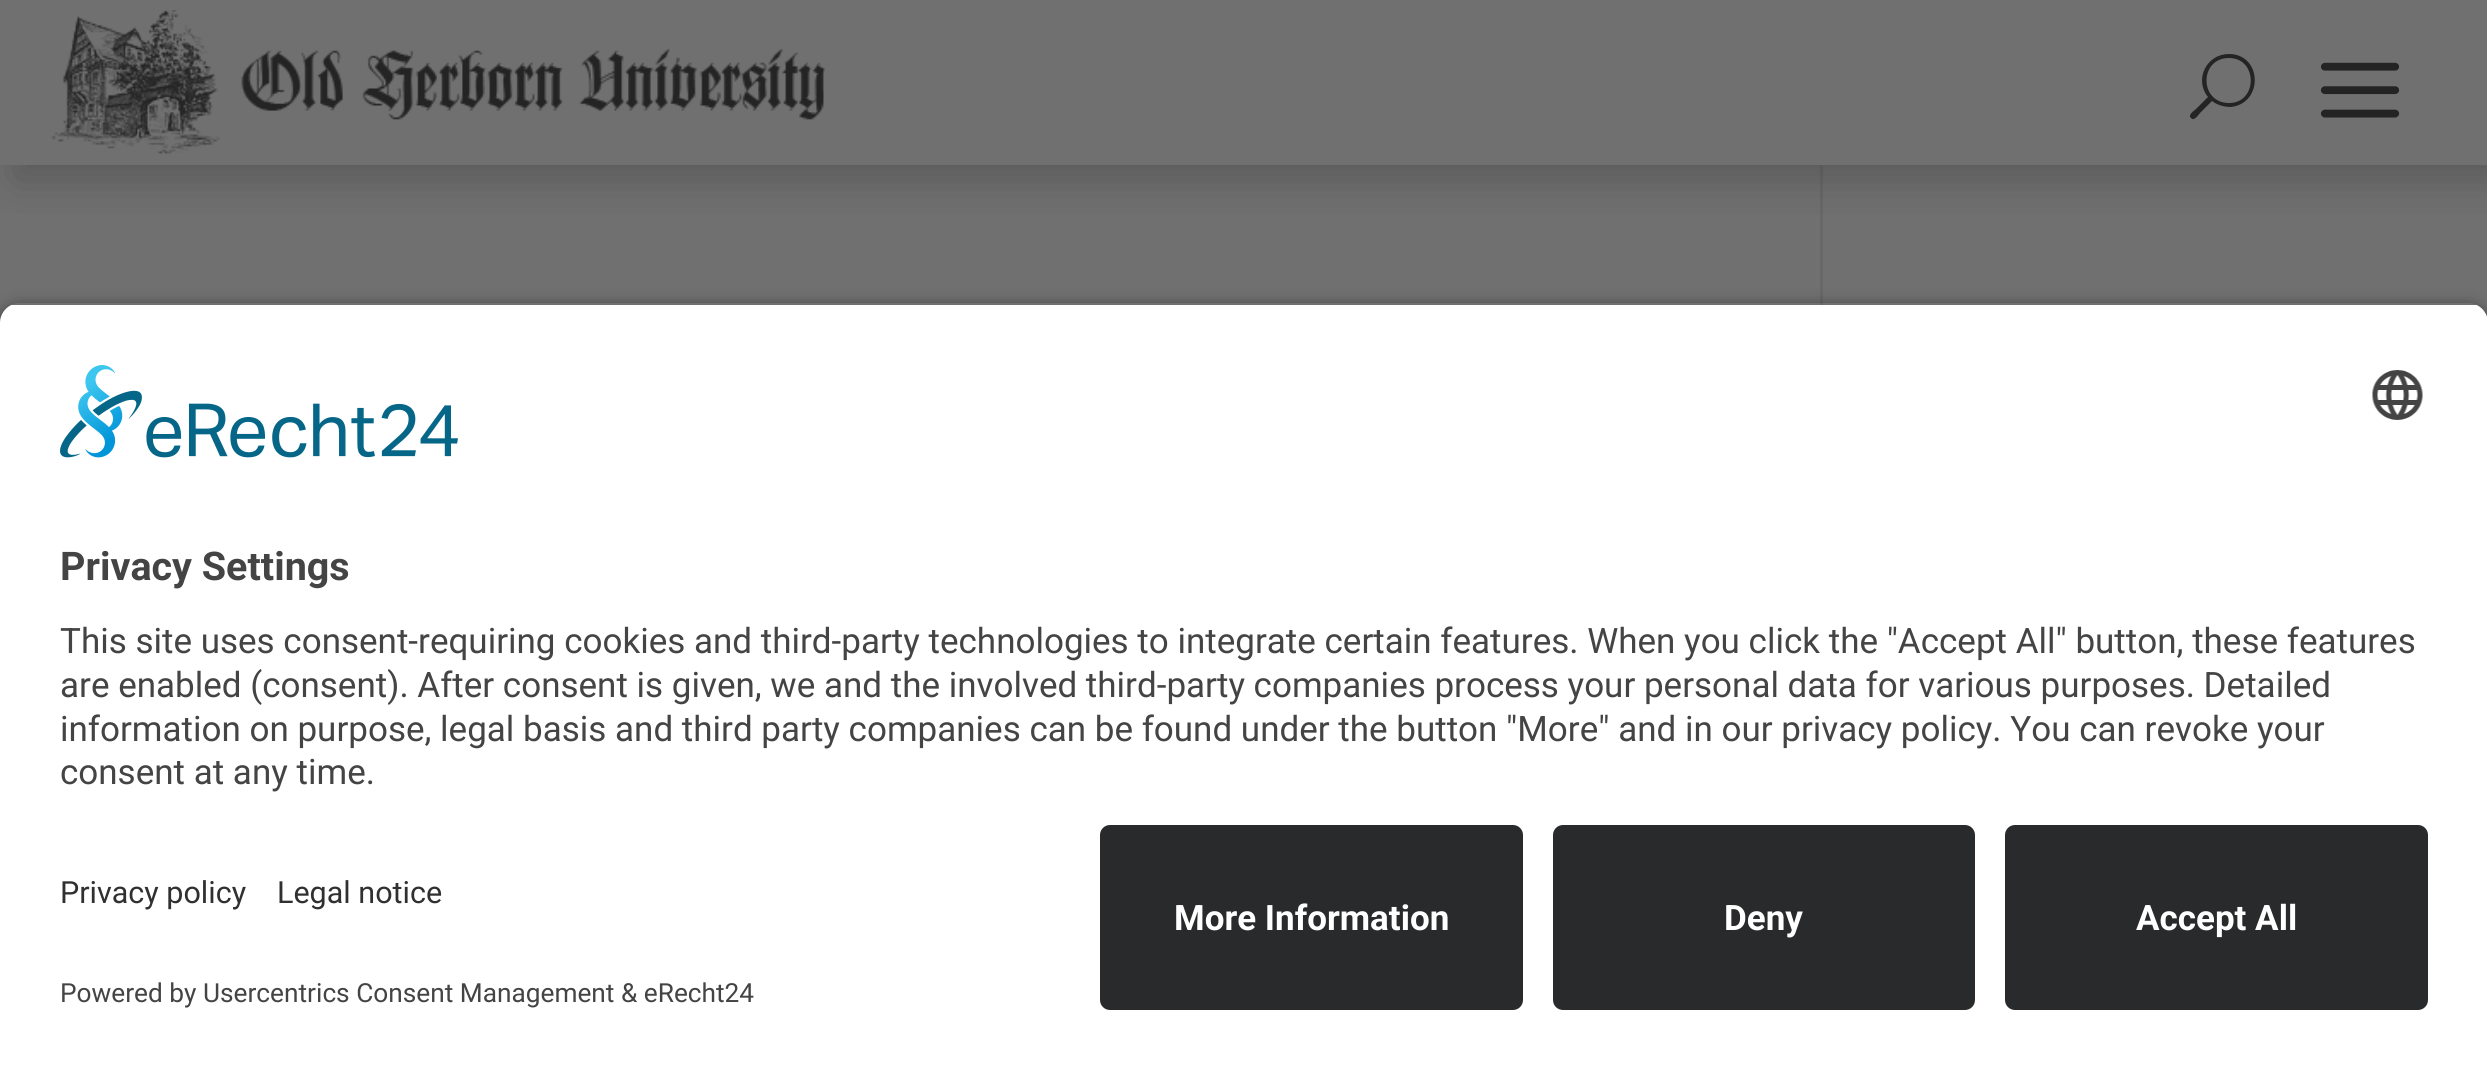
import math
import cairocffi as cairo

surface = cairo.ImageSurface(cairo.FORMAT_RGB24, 2487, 1069)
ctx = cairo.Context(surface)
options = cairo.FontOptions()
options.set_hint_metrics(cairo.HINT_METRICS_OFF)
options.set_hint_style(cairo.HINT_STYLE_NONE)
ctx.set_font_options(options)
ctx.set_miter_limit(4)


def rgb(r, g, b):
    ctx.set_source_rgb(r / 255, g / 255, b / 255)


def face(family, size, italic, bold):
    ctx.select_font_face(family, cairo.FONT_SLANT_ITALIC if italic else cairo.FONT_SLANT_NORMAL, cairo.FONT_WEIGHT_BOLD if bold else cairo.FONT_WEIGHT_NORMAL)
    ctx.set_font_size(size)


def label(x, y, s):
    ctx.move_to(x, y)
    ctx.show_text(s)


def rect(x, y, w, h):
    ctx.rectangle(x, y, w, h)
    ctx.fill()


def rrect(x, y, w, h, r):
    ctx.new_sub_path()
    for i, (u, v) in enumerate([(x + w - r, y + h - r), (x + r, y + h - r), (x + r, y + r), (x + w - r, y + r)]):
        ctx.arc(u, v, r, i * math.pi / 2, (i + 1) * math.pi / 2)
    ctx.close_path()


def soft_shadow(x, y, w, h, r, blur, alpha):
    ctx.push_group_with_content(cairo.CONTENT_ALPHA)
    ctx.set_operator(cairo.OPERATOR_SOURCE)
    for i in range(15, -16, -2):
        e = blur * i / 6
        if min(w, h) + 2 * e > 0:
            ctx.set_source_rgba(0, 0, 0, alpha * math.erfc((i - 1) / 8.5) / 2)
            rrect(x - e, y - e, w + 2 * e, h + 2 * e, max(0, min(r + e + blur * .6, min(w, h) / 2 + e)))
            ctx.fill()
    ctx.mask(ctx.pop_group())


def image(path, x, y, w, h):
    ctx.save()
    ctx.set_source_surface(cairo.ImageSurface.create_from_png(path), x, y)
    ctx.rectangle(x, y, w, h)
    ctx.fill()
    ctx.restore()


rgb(112, 112, 112)
ctx.paint()
rgb(104, 104, 104)
rect(1820, 165, 3, 140)
ctx.save()
ctx.rectangle(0, 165, 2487, 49)
ctx.clip()
rgb(36, 36, 36)
soft_shadow(15, 15, 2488, 165, 0, 22.5, 0.3)
ctx.restore()
image('image0.png', 51, 10, 774, 144)
rgb(36, 36, 36)
ctx.new_path()
ctx.move_to(2229, 54)
ctx.curve_to(2206, 54, 2194, 80, 2208, 97)
ctx.line_to(2196, 109)
ctx.curve_to(2195, 110, 2187, 115, 2191, 118)
ctx.curve_to(2194, 122, 2199, 114, 2200, 113)
ctx.line_to(2212, 101)
ctx.curve_to(2217, 105, 2224, 107, 2231, 107)
ctx.curve_to(2264, 103, 2262, 54, 2229, 54)
ctx.close_path()
ctx.move_to(2229, 103)
ctx.curve_to(2199, 103, 2199, 58, 2229, 58)
ctx.curve_to(2258, 58, 2258, 103, 2229, 103)
ctx.close_path()
ctx.fill()
image('image1.png', 2320, 62, 80, 56)
ctx.save()
ctx.set_fill_rule(cairo.FILL_RULE_EVEN_ODD)
ctx.new_path()
ctx.move_to(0, 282)
ctx.line_to(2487, 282)
ctx.line_to(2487, 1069)
ctx.line_to(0, 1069)
ctx.close_path()
ctx.move_to(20, 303)
ctx.line_to(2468, 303)
ctx.curve_to(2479, 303, 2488, 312, 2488, 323)
ctx.line_to(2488, 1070)
ctx.line_to(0, 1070)
ctx.line_to(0, 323)
ctx.curve_to(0, 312, 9, 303, 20, 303)
ctx.close_path()
ctx.clip()
rgb(0, 0, 0)
soft_shadow(0, 310, 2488, 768, 20, 9, 0.8)
ctx.restore()
ctx.save()
ctx.new_path()
ctx.move_to(20, 303)
ctx.line_to(2468, 303)
ctx.curve_to(2479, 303, 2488, 312, 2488, 323)
ctx.line_to(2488, 805)
ctx.line_to(0, 805)
ctx.line_to(0, 323)
ctx.curve_to(0, 312, 9, 303, 20, 303)
ctx.close_path()
ctx.clip()
rgb(255, 255, 255)
rect(0, 305, 2487, 500)
ctx.restore()
image('image2.png', 60, 365, 398, 93)
image('image3.png', 2372, 370, 51, 50)
face('Roboto', 39.5, 0, 1)
rgb(68, 68, 68)
label(60, 580, 'Privacy Settings')
face('Roboto', 35, 0, 0)
label(60, 653, 'This site uses consent-requiring cookies and third-party technologies to integrate certain features. When you click the "Accept All" button, these features')
label(60, 697, 'are enabled (consent). After consent is given, we and the involved third-party companies process your personal data for various purposes. Detailed')
label(60, 741, 'information on purpose, legal basis and third party companies can be found under the button "More" and in our privacy policy. You can revoke your')
label(60, 784, 'consent at any time.')
rgb(255, 255, 255)
rect(0, 805, 2487, 264)
face('Roboto', 30.5, 0, 0)
rgb(48, 48, 48)
label(60, 903, 'Privacy policy')
label(277, 903, 'Legal notice')
face('Roboto', 26.25, 0, 0)
rgb(68, 68, 68)
label(60, 1002, 'Powered by Usercentrics Consent Management & eRecht24')
rgb(41, 42, 43)
rrect(1100, 825, 423, 185, 10)
ctx.fill()
face('Roboto', 35, 0, 1)
rgb(255, 255, 255)
label(1174, 930, 'More Information')
rgb(41, 42, 43)
rrect(1553, 825, 422, 185, 10)
ctx.fill()
rgb(255, 255, 255)
label(1724, 930, 'Deny')
rgb(41, 42, 43)
rrect(2005, 825, 423, 185, 10)
ctx.fill()
rgb(255, 255, 255)
label(2136, 930, 'Accept All')
surface.write_to_png('render.png')
